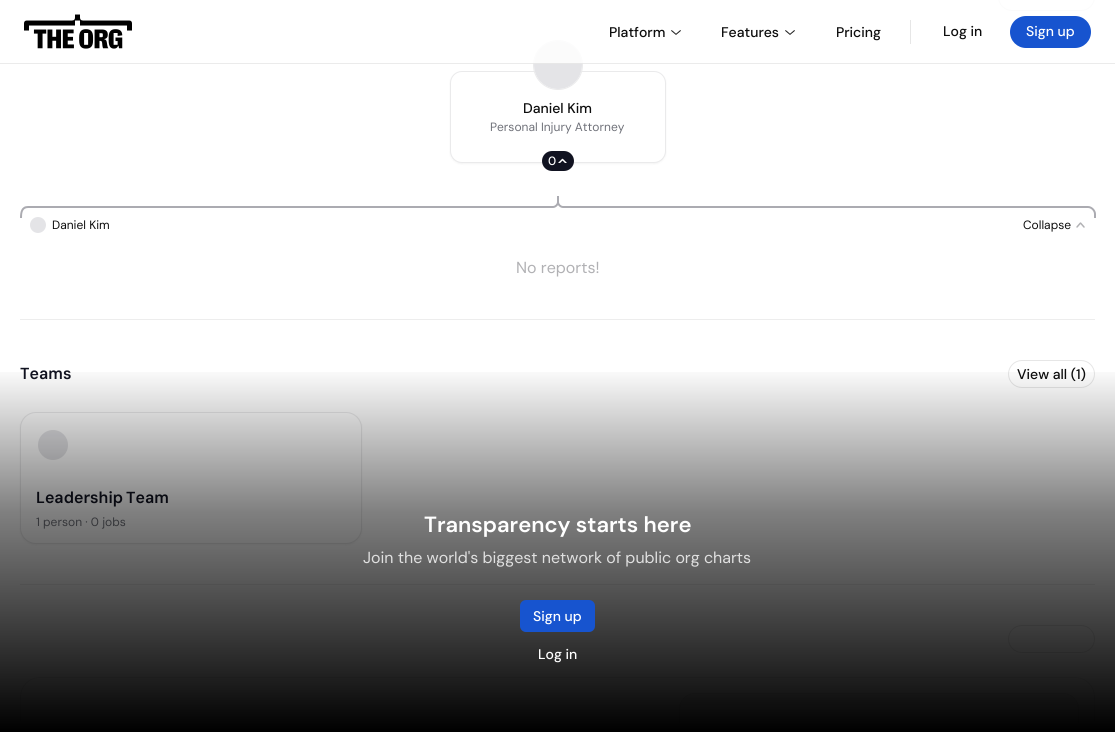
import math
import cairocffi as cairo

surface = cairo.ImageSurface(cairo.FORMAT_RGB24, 1115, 732)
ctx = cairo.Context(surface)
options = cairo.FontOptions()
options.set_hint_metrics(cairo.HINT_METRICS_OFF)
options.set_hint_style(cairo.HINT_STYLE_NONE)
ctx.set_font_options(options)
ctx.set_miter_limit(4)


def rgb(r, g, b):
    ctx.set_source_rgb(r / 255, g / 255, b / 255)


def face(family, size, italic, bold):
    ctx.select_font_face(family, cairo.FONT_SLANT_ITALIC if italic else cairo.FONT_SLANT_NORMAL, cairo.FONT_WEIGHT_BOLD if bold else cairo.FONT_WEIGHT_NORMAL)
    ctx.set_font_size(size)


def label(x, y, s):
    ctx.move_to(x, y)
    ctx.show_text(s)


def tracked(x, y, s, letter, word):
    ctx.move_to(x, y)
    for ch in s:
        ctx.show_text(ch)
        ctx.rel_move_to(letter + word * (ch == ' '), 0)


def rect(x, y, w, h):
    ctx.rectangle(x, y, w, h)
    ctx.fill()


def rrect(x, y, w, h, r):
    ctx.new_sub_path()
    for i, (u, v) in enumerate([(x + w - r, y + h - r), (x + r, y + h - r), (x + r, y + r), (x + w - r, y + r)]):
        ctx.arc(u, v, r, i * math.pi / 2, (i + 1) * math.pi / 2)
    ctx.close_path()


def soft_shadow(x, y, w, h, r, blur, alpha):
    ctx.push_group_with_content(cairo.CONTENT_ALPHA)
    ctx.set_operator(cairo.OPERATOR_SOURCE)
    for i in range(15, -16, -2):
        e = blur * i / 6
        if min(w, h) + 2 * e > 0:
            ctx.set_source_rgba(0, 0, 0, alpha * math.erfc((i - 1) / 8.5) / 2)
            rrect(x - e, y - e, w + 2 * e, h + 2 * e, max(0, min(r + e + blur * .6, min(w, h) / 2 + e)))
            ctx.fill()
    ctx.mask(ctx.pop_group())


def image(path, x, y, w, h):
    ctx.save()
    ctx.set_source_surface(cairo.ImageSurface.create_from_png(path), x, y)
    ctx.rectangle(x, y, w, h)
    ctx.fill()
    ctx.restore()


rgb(255, 255, 255)
ctx.paint()
rrect(998.5, -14.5, 96, 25, 13.5)
rgb(230, 230, 230)
ctx.set_line_width(1)
ctx.stroke()
rgb(0, 0, 0)
soft_shadow(450, 72, 216, 92, 12, 1, 0.05)
rgb(255, 255, 255)
rrect(450.5, 71.5, 215, 91, 11.5)
ctx.fill_preserve()
rgb(234, 234, 235)
ctx.stroke()
ctx.arc(558, 65, 24.5, 0, 2 * math.pi)
ctx.stroke()
rgb(228, 228, 231)
ctx.arc(558, 65, 24, 0, 2 * math.pi)
ctx.fill()
ctx.set_source_rgba(1, 1, 1, 0.85)
rect(533, 0, 562, 64)
ctx.set_source_rgba(0, 0, 0, 0.08)
rect(0, 63, 1115, 1)
image('image0.png', 24, 14, 108, 35)
face('DM Sans Medium', 14, 0, 0)
rgb(13, 13, 13)
label(609, 37, 'Platform')
image('image1.png', 671, 30, 10, 5)
label(721, 37, 'Features')
image('image1.png', 785, 30, 10, 5)
label(836, 37, 'Pricing')
rgb(230, 230, 230)
rect(910, 20, 1, 24)
rgb(13, 13, 13)
label(943, 36, 'Log in')
rgb(23, 84, 207)
rrect(1010, 16, 81, 32, 16)
ctx.fill()
rgb(255, 255, 255)
label(1026, 36, 'Sign up')
rgb(13, 13, 13)
label(523, 113, 'Daniel Kim')
face('DM Sans', 12, 0, 0)
rgb(111, 113, 121)
label(490, 131, 'Personal Injury Attorney')
rgb(17, 19, 33)
rrect(542, 151, 32, 20, 10)
ctx.fill()
face('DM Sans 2 Medium', 12, 0, 0)
rgb(255, 255, 255)
label(548, 165, '0')
ctx.save()
ctx.rectangle(558, 157, 9, 6)
ctx.clip()
ctx.new_path()
ctx.move_to(566, 163)
ctx.line_to(562.5, 159.5)
ctx.line_to(559, 163)
ctx.set_line_width(1.5)
ctx.set_line_cap(cairo.LINE_CAP_ROUND)
ctx.set_line_join(cairo.LINE_JOIN_ROUND)
ctx.stroke()
ctx.restore()
rgb(171, 171, 177)
rect(128, 206, 322, 2)
ctx.set_fill_rule(cairo.FILL_RULE_EVEN_ODD)
ctx.new_path()
ctx.move_to(450, 196)
ctx.line_to(559, 196)
ctx.line_to(559, 202)
ctx.curve_to(559, 205, 556, 208, 553, 208)
ctx.line_to(450, 208)
ctx.close_path()
ctx.move_to(450, 196)
ctx.line_to(557, 196)
ctx.line_to(557, 202)
ctx.curve_to(557, 204, 555, 206, 553, 206)
ctx.line_to(450, 206)
ctx.close_path()
ctx.fill()
ctx.new_path()
ctx.move_to(28, 206)
ctx.line_to(129, 206)
ctx.line_to(129, 218)
ctx.line_to(20, 218)
ctx.curve_to(20, 212, 21, 206, 28, 206)
ctx.close_path()
ctx.move_to(28, 208)
ctx.line_to(129, 208)
ctx.line_to(129, 218)
ctx.line_to(22, 218)
ctx.curve_to(22, 214, 22, 208, 28, 208)
ctx.close_path()
ctx.fill()
rect(665, 206, 323, 2)
ctx.new_path()
ctx.move_to(557, 196)
ctx.line_to(665, 196)
ctx.line_to(665, 208)
ctx.line_to(563, 208)
ctx.curve_to(560, 208, 557, 205, 557, 202)
ctx.close_path()
ctx.move_to(559, 196)
ctx.line_to(665, 196)
ctx.line_to(665, 206)
ctx.line_to(563, 206)
ctx.curve_to(561, 206, 559, 204, 559, 202)
ctx.close_path()
ctx.fill()
ctx.new_path()
ctx.move_to(988, 206)
ctx.line_to(1088, 206)
ctx.curve_to(1092, 206, 1096, 210, 1096, 214)
ctx.line_to(1096, 218)
ctx.line_to(988, 218)
ctx.close_path()
ctx.move_to(988, 208)
ctx.line_to(1088, 208)
ctx.curve_to(1091, 208, 1094, 211, 1094, 214)
ctx.line_to(1094, 218)
ctx.line_to(988, 218)
ctx.close_path()
ctx.fill()
rgb(228, 228, 231)
ctx.arc(38, 225, 8, 0, 2 * math.pi)
ctx.fill()
face('DM Sans', 12, 0, 0)
rgb(13, 13, 13)
label(52, 229, 'Daniel Kim')
label(1023, 229, 'Collapse')
image('image2.png', 1076, 222, 9, 6)
face('DM Sans 2', 16, 0, 0)
rgb(177, 177, 180)
label(516, 273, 'No reports!')
rgb(237, 237, 237)
rect(20, 319, 1075, 1)
face('DM Sans SemiBold', 16, 0, 0)
rgb(17, 19, 33)
label(20, 379, 'Teams')
rrect(1008.5, 360.5, 86, 27, 13.5)
rgb(230, 230, 230)
ctx.stroke()
face('DM Sans Medium', 14, 0, 0)
rgb(13, 13, 13)
label(1017, 379, 'View all (1)')
rgb(0, 0, 0)
soft_shadow(20, 413, 342, 132, 16, 1, 0.05)
rgb(255, 255, 255)
rrect(20.5, 412.5, 341, 131, 15.5)
ctx.fill_preserve()
rgb(234, 234, 235)
ctx.stroke()
rgb(228, 228, 231)
ctx.arc(53, 445, 16, 0, 2 * math.pi)
ctx.fill_preserve()
rgb(255, 255, 255)
ctx.set_line_width(2)
ctx.stroke()
face('DM Sans SemiBold', 16, 0, 0)
rgb(17, 19, 33)
tracked(36, 503, 'Leadership Team', 0, -1)
face('DM Sans', 12, 0, 0)
rgb(111, 113, 121)
label(36, 526, '1 person · 0 jobs')
rgb(237, 237, 237)
rect(20, 584, 1075, 1)
rrect(1008.5, 625.5, 86, 27, 13.5)
rgb(230, 230, 230)
ctx.set_line_width(1)
ctx.stroke()
rrect(20.5, 677.5, 1074, 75, 19.5)
rgb(234, 234, 235)
ctx.stroke()
rgb(247, 247, 247)
rrect(679.5, 693.5, 399, 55, 15.5)
ctx.fill_preserve()
rgb(230, 230, 230)
ctx.stroke()
gradient = cairo.LinearGradient(558, 366, 558, 732)
gradient.add_color_stop_rgba(0, 0, 0, 0, 0)
gradient.add_color_stop_rgba(0.4, 0, 0, 0, 0.5)
gradient.add_color_stop_rgba(1, 0, 0, 0, 1)
ctx.set_source(gradient)
rect(0, 372, 1115, 360)
face('DM Sans 2 SemiBold', 22, 0, 0)
rgb(255, 255, 255)
label(424, 532, 'Transparency starts here')
face('DM Sans 2', 16, 0, 0)
rgb(224, 224, 224)
label(363, 563, 'Join the world\'s biggest network of public org charts')
rgb(23, 84, 207)
rrect(520, 600, 75, 32, 6)
ctx.fill()
face('DM Sans Medium', 14, 0, 0)
rgb(255, 255, 255)
label(533, 621, 'Sign up')
label(538, 659, 'Log in')
surface.write_to_png('render.png')
